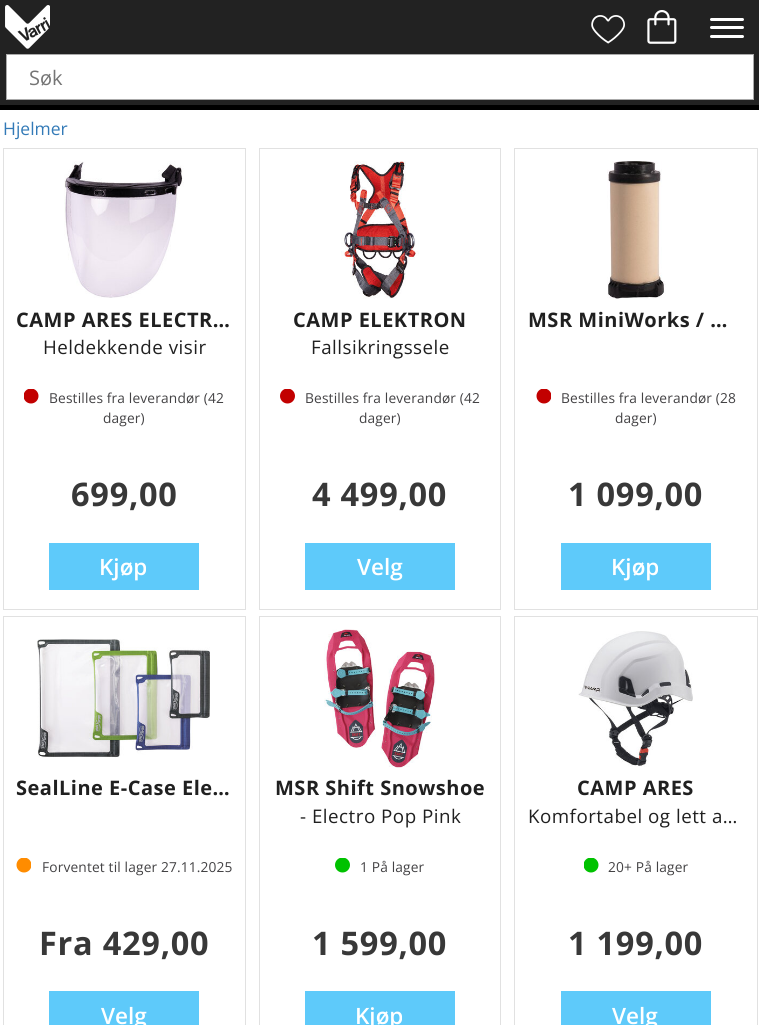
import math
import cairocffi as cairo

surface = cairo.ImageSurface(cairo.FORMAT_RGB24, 759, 1025)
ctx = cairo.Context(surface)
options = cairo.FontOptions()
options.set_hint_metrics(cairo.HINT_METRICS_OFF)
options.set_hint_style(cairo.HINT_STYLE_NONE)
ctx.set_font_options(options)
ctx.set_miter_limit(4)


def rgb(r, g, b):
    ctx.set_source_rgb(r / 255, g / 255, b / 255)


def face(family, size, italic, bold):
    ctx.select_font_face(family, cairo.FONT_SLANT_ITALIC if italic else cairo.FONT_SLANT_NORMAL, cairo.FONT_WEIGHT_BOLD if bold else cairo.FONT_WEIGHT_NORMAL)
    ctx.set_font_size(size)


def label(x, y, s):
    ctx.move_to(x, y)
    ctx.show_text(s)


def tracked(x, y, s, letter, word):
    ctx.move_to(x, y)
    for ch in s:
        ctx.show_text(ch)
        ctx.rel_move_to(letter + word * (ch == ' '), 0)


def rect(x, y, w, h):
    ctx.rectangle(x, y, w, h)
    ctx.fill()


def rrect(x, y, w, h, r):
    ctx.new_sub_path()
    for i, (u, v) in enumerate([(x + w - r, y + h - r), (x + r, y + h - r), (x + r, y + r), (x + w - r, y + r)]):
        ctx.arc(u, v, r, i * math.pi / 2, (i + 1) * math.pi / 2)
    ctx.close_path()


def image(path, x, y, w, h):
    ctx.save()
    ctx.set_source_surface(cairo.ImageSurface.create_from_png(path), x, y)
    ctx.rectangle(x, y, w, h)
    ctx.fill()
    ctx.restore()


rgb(255, 255, 255)
ctx.paint()
rgb(34, 34, 34)
rect(0, 0, 759, 105)
rgb(0, 0, 0)
rect(0, 105, 759, 5)
image('image0.png', 5, 5, 45, 44)
image('image1.png', 591, 15, 34, 29)
image('image2.png', 647, 10, 30, 34)
rgb(255, 255, 255)
rrect(710, 18, 34, 3, 1.5)
ctx.fill()
rrect(710, 26, 34, 3, 1.5)
ctx.fill()
rrect(710, 35, 34, 3, 1.5)
ctx.fill()
ctx.rectangle(6.5, 54.5, 747, 45)
ctx.fill_preserve()
rgb(170, 170, 170)
ctx.set_line_width(1)
ctx.stroke()
face('Open Sans', 20, 0, 0)
rgb(117, 117, 117)
label(29, 85, 'Søk')
face('Open Sans', 17.5, 0, 0)
rgb(51, 122, 183)
label(3, 135, 'Hjelmer')
ctx.rectangle(3.5, 148.5, 242, 461)
rgb(225, 225, 225)
ctx.stroke()
image('image3.png', 64, 161, 120, 137)
face('Open Sans', 20, 0, 1)
rgb(32, 32, 32)
tracked(16, 327, 'CAMP ARES ELECTR…', 0.5, 0)
face('Open Sans', 18.75, 0, 0)
tracked(43, 354, 'Heldekkende visir', 0.5, 0)
face('Open Sans', 13.75, 0, 0)
rgb(67, 66, 68)
tracked(49, 403, 'Bestilles fra leverandør (42', 0.15, 0)
ctx.save()
ctx.rectangle(24, 389, 15, 15)
ctx.clip()
rgb(194, 0, 0)
ctx.arc(31, 396, 7.5, 0, 2 * math.pi)
ctx.fill()
ctx.restore()
tracked(103, 423, 'dager)', 0.15, 0)
face('Open Sans', 32.5, 0, 1)
rgb(56, 56, 56)
tracked(71, 506, '699,00', 0.75, 0)
rgb(94, 202, 250)
rect(49, 543, 150, 47)
face('Open Sans SemiBold', 22.5, 0, 0)
rgb(255, 255, 255)
label(99, 575, 'Kjøp')
ctx.rectangle(259.5, 148.5, 241, 461)
rgb(225, 225, 225)
ctx.stroke()
image('image4.png', 341, 161, 78, 138)
face('Open Sans', 20, 0, 1)
rgb(32, 32, 32)
tracked(293, 327, 'CAMP ELEKTRON', 0.5, 0)
face('Open Sans', 18.75, 0, 0)
tracked(311, 354, 'Fallsikringssele', 0.5, 0)
face('Open Sans', 13.75, 0, 0)
rgb(67, 66, 68)
tracked(305, 403, 'Bestilles fra leverandør (42', 0.15, 0)
ctx.save()
ctx.rectangle(280, 389, 15, 15)
ctx.clip()
rgb(194, 0, 0)
ctx.arc(287.5, 396, 7.5, 0, 2 * math.pi)
ctx.fill()
ctx.restore()
tracked(359, 423, 'dager)', 0.15, 0)
face('Open Sans', 32.5, 0, 1)
rgb(56, 56, 56)
tracked(312, 506, '4 499,00', 0.75, 0)
rgb(94, 202, 250)
rect(305, 543, 150, 47)
face('Open Sans SemiBold', 22.5, 0, 0)
rgb(255, 255, 255)
label(357, 575, 'Velg')
ctx.rectangle(514.5, 148.5, 243, 461)
rgb(225, 225, 225)
ctx.stroke()
image('image5.png', 607, 161, 59, 138)
face('Open Sans', 20, 0, 1)
rgb(32, 32, 32)
tracked(528, 327, 'MSR MiniWorks / …', 0.5, 0)
face('Open Sans', 13.75, 0, 0)
rgb(67, 66, 68)
tracked(561, 403, 'Bestilles fra leverandør (28', 0.15, 0)
ctx.save()
ctx.rectangle(536, 389, 15, 15)
ctx.clip()
rgb(194, 0, 0)
ctx.arc(544, 396, 7.5, 0, 2 * math.pi)
ctx.fill()
ctx.restore()
tracked(615, 423, 'dager)', 0.15, 0)
face('Open Sans', 32.5, 0, 1)
rgb(56, 56, 56)
tracked(568, 506, '1 099,00', 0.75, 0)
rgb(94, 202, 250)
rect(561, 543, 150, 47)
face('Open Sans SemiBold', 22.5, 0, 0)
rgb(255, 255, 255)
label(611, 575, 'Kjøp')
ctx.rectangle(3.5, 616.5, 242, 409)
rgb(225, 225, 225)
ctx.stroke()
image('image6.png', 37, 639, 173, 119)
face('Open Sans', 20, 0, 1)
rgb(32, 32, 32)
tracked(16, 795, 'SealLine E-Case Ele…', 0.5, 0)
face('Open Sans', 13.75, 0, 0)
rgb(67, 66, 68)
tracked(42, 872, 'Forventet til lager 27.11.2025', 0.15, 0)
ctx.save()
ctx.rectangle(16, 858, 15, 15)
ctx.clip()
rgb(255, 140, 0)
ctx.arc(24, 865, 7.5, 0, 2 * math.pi)
ctx.fill()
ctx.restore()
face('Open Sans', 32.5, 0, 1)
rgb(56, 56, 56)
tracked(39, 955, 'Fra 429,00', 0.75, 0)
rgb(94, 202, 250)
rect(49, 991, 150, 34)
face('Open Sans SemiBold', 22.5, 0, 0)
rgb(255, 255, 255)
label(101, 1024, 'Velg')
ctx.rectangle(259.5, 616.5, 241, 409)
rgb(225, 225, 225)
ctx.stroke()
image('image7.png', 324, 629, 112, 139)
face('Open Sans', 20, 0, 1)
rgb(32, 32, 32)
tracked(275, 795, 'MSR Shift Snowshoe', 0.5, 0)
face('Open Sans', 18.75, 0, 0)
tracked(300, 823, '- Electro Pop Pink', 0.5, 0)
face('Open Sans', 13.75, 0, 0)
rgb(67, 66, 68)
tracked(360, 872, '1 På lager', 0.15, 0)
ctx.save()
ctx.rectangle(335, 858, 15, 15)
ctx.clip()
rgb(0, 194, 0)
ctx.arc(342.5, 865, 7.5, 0, 2 * math.pi)
ctx.fill()
ctx.restore()
face('Open Sans', 32.5, 0, 1)
rgb(56, 56, 56)
tracked(312, 955, '1 599,00', 0.75, 0)
rgb(94, 202, 250)
rect(305, 991, 150, 34)
face('Open Sans SemiBold', 22.5, 0, 0)
rgb(255, 255, 255)
label(355, 1024, 'Kjøp')
ctx.rectangle(514.5, 616.5, 243, 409)
rgb(225, 225, 225)
ctx.stroke()
image('image8.png', 578, 631, 115, 136)
face('Open Sans', 20, 0, 1)
rgb(32, 32, 32)
tracked(577, 795, 'CAMP ARES', 0.5, 0)
face('Open Sans', 18.75, 0, 0)
tracked(528, 823, 'Komfortabel og lett a…', 0.5, 0)
face('Open Sans', 13.75, 0, 0)
rgb(67, 66, 68)
tracked(608, 872, '20+ På lager', 0.15, 0)
ctx.save()
ctx.rectangle(584, 858, 15, 15)
ctx.clip()
rgb(0, 194, 0)
ctx.arc(591, 865, 7.5, 0, 2 * math.pi)
ctx.fill()
ctx.restore()
face('Open Sans', 32.5, 0, 1)
rgb(56, 56, 56)
tracked(568, 955, '1 199,00', 0.75, 0)
rgb(94, 202, 250)
rect(561, 991, 150, 34)
face('Open Sans SemiBold', 22.5, 0, 0)
rgb(255, 255, 255)
label(612, 1024, 'Velg')
surface.write_to_png('render.png')
